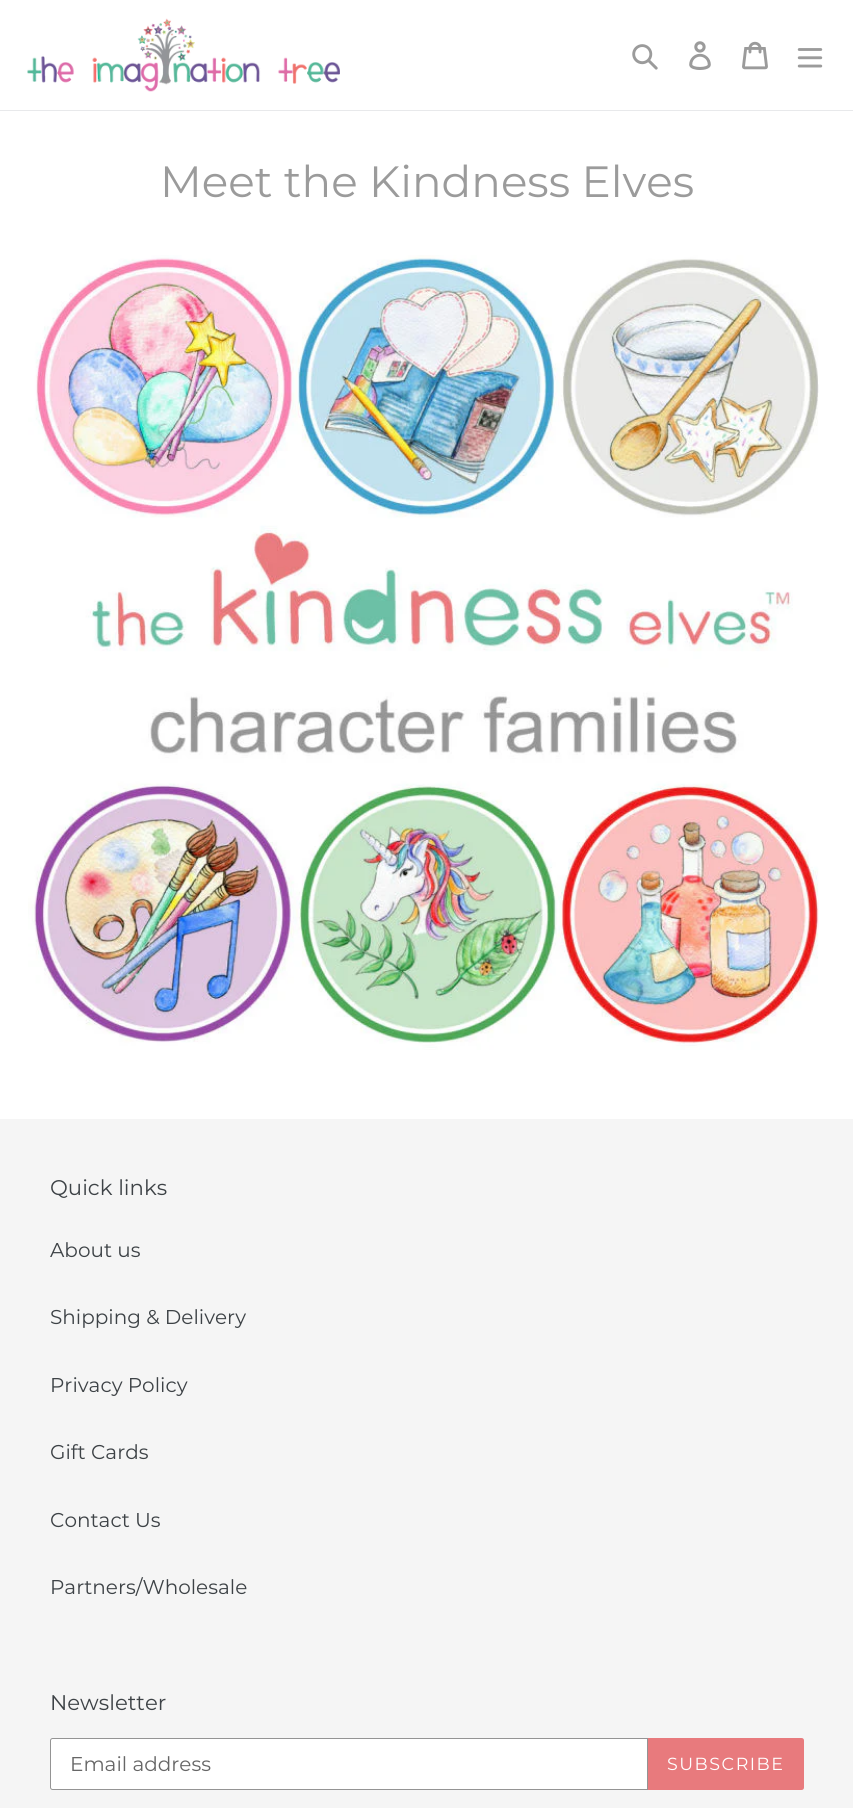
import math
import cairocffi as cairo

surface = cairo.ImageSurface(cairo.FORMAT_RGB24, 853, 1808)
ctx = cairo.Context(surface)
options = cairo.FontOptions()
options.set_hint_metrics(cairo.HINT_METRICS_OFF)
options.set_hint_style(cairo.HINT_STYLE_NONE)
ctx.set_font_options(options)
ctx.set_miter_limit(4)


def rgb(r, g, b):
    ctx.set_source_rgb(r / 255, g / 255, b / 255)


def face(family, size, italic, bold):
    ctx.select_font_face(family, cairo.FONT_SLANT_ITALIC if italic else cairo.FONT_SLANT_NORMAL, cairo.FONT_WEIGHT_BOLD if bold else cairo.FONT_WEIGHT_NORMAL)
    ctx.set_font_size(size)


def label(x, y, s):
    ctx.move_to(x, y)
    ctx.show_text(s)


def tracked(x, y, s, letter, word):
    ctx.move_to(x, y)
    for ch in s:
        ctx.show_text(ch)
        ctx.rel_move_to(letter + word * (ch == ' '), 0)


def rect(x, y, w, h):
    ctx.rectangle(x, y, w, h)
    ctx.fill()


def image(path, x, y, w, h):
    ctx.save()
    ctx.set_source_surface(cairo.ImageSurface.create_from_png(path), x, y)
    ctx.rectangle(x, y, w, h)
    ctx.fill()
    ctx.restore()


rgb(255, 255, 255)
ctx.paint()
rgb(232, 233, 235)
rect(0, 110, 853, 1)
image('image0.png', 27, 18, 313, 74)
image('image1.png', 632, 44, 26, 26)
image('image2.png', 689, 41, 22, 29)
image('image3.png', 742, 41, 26, 29)
image('image4.png', 797, 48, 26, 20)
face('Montserrat', 43.75, 0, 0)
rgb(155, 155, 155)
label(160, 197, 'Meet the Kindness Elves')
image('image5.png', 28, 255, 791, 795)
rgb(245, 245, 245)
rect(0, 1119, 853, 689)
face('Montserrat', 21.25, 0, 0)
rgb(61, 66, 70)
label(50, 1195, 'Quick links')
face('Montserrat', 20, 0, 0)
label(50, 1257, 'About us')
label(50, 1324, 'Shipping & Delivery')
label(50, 1392, 'Privacy Policy')
label(50, 1459, 'Gift Cards')
label(50, 1527, 'Contact Us')
label(50, 1594, 'Partners/Wholesale')
face('Montserrat', 21.25, 0, 0)
label(50, 1710, 'Newsletter')
rgb(255, 255, 255)
ctx.new_path()
ctx.move_to(52.5, 1738.5)
ctx.line_to(647.5, 1738.5)
ctx.line_to(647.5, 1789.5)
ctx.line_to(52.5, 1789.5)
ctx.curve_to(51.5, 1789.5, 50.5, 1788.5, 50.5, 1787.5)
ctx.line_to(50.5, 1740.5)
ctx.curve_to(50.5, 1739.5, 51.5, 1738.5, 52.5, 1738.5)
ctx.close_path()
ctx.fill_preserve()
rgb(148, 148, 148)
ctx.set_line_width(1)
ctx.stroke()
face('Montserrat', 20, 0, 0)
rgb(102, 102, 102)
label(70, 1771, 'Email address')
rgb(232, 122, 125)
ctx.new_path()
ctx.move_to(648, 1738)
ctx.line_to(801.5, 1738)
ctx.curve_to(803, 1738, 804, 1739, 804, 1740.5)
ctx.line_to(804, 1787.5)
ctx.curve_to(804, 1789, 803, 1790, 801.5, 1790)
ctx.line_to(648, 1790)
ctx.close_path()
ctx.fill()
face('Montserrat', 17.5, 0, 0)
rgb(255, 255, 255)
tracked(667, 1770, 'SUBSCRIBE', 1.5, 0)
surface.write_to_png('render.png')
